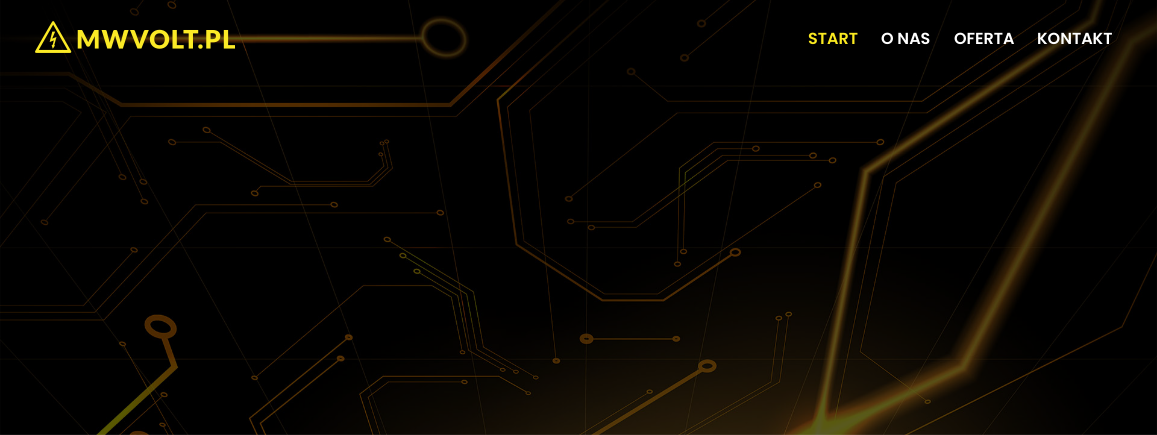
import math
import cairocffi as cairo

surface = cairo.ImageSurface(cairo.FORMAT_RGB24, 1157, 435)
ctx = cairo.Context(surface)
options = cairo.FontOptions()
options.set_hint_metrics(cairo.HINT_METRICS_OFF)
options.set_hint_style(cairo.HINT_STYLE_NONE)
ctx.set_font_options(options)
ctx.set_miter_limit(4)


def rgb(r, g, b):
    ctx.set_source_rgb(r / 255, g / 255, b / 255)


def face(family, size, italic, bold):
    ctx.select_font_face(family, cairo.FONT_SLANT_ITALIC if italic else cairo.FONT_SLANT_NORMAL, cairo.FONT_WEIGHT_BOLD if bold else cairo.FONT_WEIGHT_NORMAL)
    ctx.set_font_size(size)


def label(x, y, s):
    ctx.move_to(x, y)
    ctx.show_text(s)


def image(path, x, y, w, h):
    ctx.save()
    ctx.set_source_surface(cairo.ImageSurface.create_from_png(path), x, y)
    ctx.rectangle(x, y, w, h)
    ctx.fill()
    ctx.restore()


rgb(255, 255, 255)
ctx.paint()
image('image0.png', 0, 0, 1157, 435)
image('image1.png', 35, 21, 200, 32)
face('Poppins SemiBold', 16, 0, 0)
rgb(251, 234, 32)
label(808, 44, 'START')
rgb(255, 255, 255)
label(881, 44, 'O NAS')
label(954, 44, 'OFERTA')
label(1037, 44, 'KONTAKT')
surface.write_to_png('render.png')
